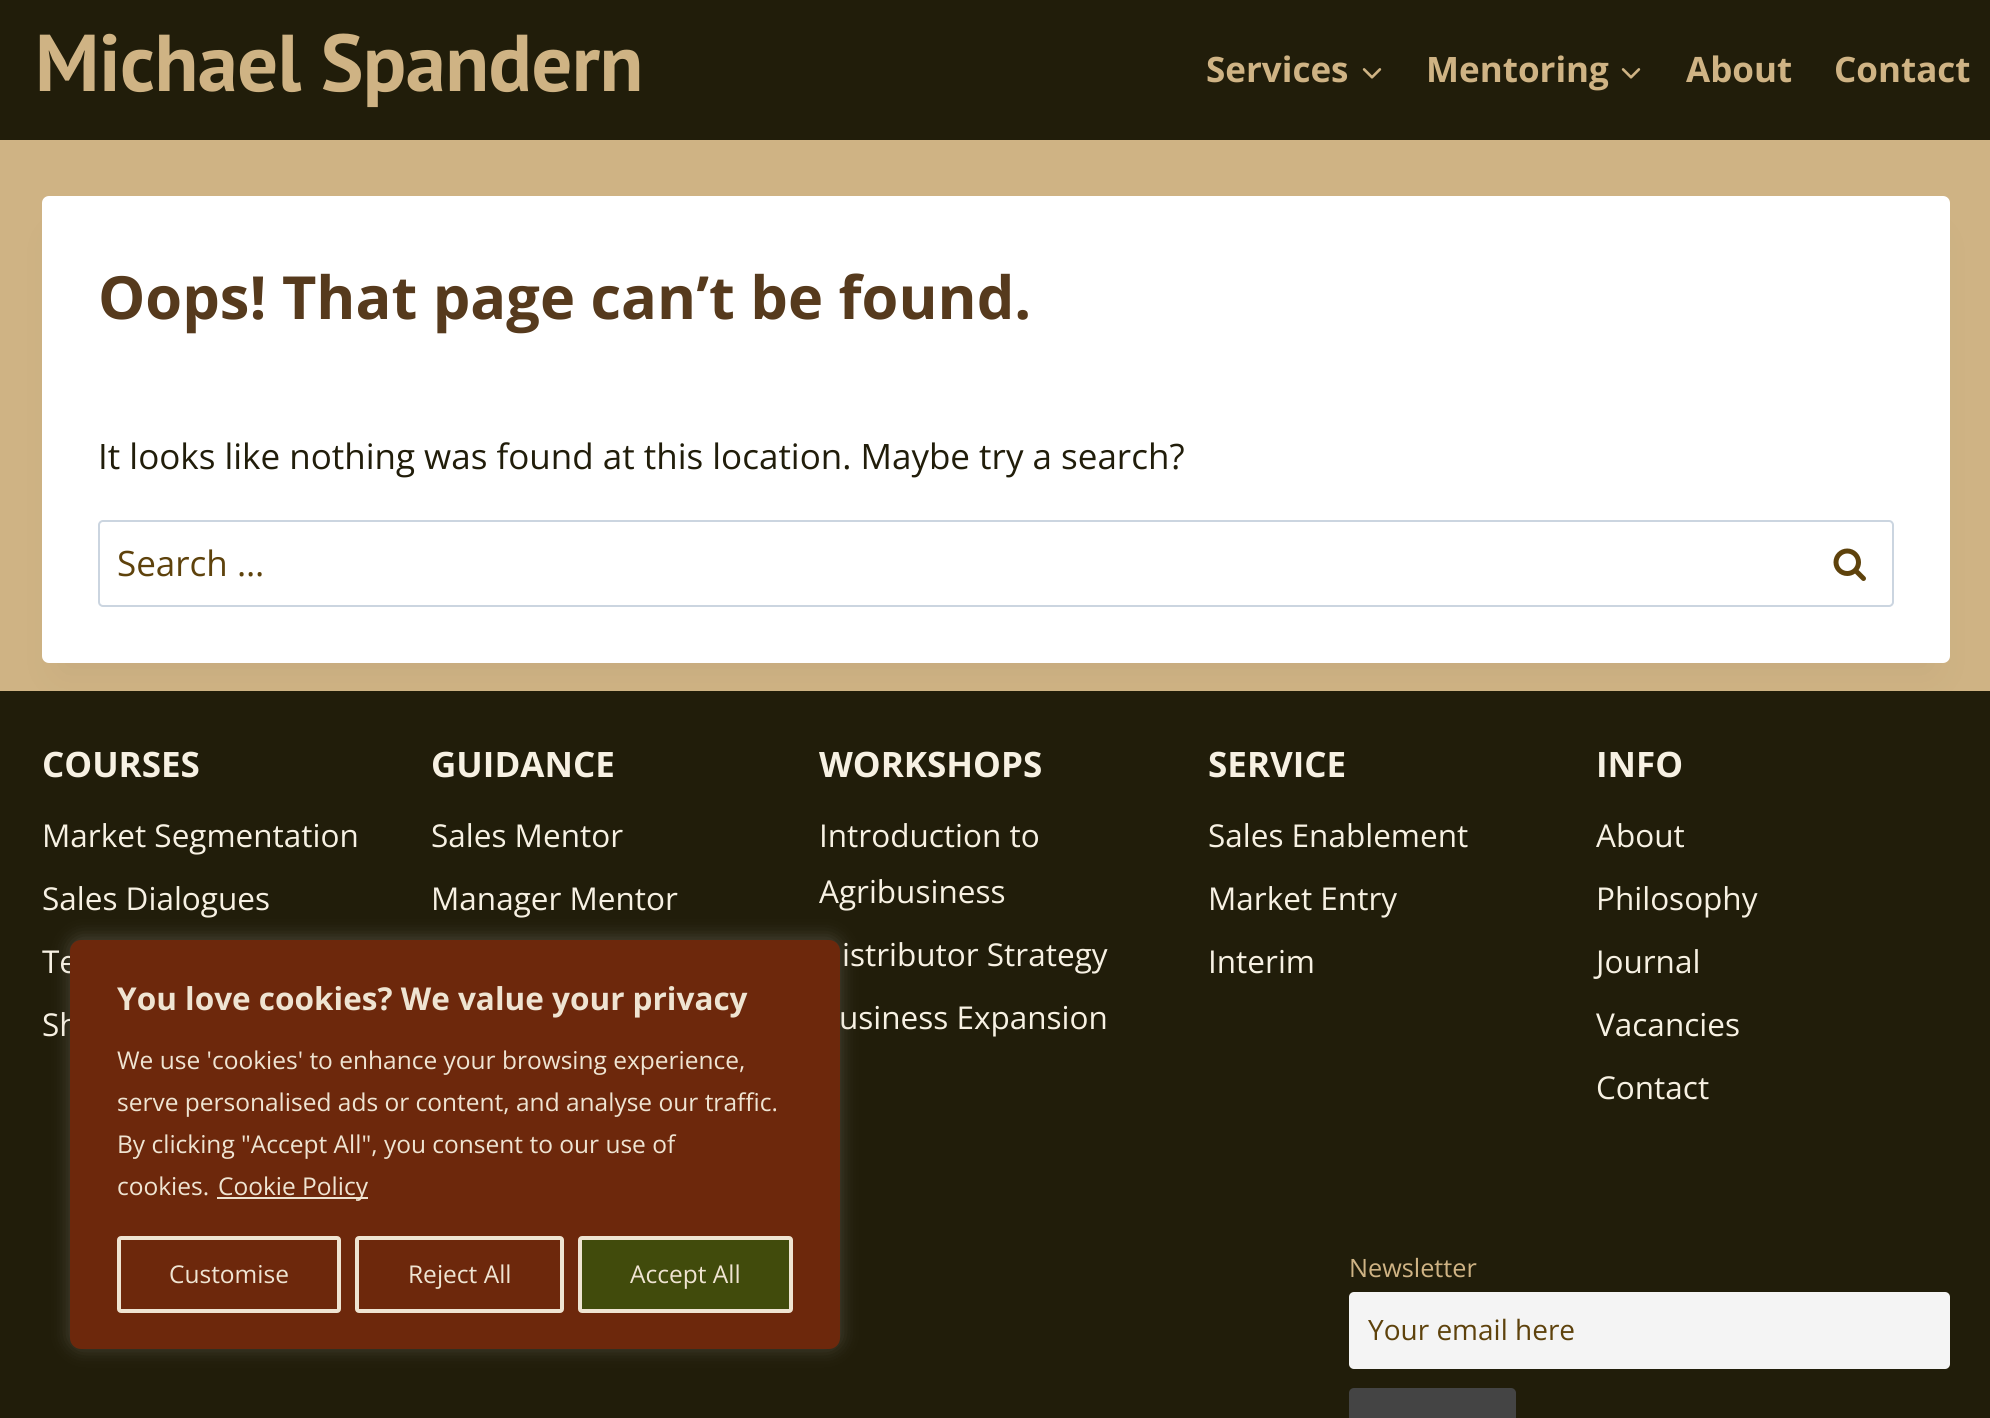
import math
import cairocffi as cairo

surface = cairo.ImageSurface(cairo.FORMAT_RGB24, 1990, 1418)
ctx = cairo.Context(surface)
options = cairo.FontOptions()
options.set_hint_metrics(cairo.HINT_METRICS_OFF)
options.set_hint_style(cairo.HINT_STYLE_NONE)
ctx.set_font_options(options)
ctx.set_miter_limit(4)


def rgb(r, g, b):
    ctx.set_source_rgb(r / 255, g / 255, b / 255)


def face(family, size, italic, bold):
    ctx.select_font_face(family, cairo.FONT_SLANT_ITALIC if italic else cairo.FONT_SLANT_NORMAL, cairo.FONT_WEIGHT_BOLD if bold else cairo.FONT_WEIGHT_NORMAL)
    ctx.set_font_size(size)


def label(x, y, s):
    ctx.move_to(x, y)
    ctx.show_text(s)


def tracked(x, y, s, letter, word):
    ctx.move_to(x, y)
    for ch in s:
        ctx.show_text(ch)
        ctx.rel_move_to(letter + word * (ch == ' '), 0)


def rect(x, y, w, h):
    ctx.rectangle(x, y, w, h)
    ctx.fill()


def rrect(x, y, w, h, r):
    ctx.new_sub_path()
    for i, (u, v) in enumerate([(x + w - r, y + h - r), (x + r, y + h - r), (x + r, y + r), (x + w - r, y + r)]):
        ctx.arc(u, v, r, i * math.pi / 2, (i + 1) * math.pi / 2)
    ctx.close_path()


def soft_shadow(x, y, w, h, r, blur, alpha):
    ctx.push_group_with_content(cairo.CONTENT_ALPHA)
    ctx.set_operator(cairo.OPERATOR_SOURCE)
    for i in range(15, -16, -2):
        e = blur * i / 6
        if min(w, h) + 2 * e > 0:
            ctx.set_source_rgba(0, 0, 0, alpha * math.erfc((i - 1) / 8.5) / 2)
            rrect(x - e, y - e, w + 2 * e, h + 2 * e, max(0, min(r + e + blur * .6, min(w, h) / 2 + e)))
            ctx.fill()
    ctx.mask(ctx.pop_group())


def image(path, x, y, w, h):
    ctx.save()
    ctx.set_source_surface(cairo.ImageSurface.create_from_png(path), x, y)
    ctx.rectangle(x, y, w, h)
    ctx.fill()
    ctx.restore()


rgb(207, 179, 132)
ctx.paint()
rgb(33, 29, 10)
rect(0, 0, 1990, 140)
face('PT Sans', 80.5, 0, 1)
rgb(207, 179, 132)
tracked(35, 91, 'Michael Spandern', -0.5, 0)
face('Open Sans', 35, 0, 1)
label(1206, 82, 'Services')
image('image0.png', 1362, 68, 20, 11)
label(1426, 82, 'Mentoring')
image('image0.png', 1621, 68, 20, 11)
label(1686, 82, 'About')
label(1834, 82, 'Contact')
rgb(33, 29, 10)
rect(0, 691, 1990, 727)
rgb(0, 0, 0)
soft_shadow(60, 240, 1872, 432, 0, 22, 0.05)
rgb(255, 255, 255)
rrect(42, 196, 1908, 467, 7)
ctx.fill()
face('Open Sans', 59.5, 0, 1)
rgb(86, 58, 29)
label(98, 319, 'Oops! That page can’t be found.')
face('Open Sans', 35, 0, 0)
rgb(33, 29, 10)
label(98, 469, 'It looks like nothing was found at this location. Maybe try a search?')
rrect(99, 521, 1794, 85, 4)
rgb(203, 213, 224)
ctx.stroke()
rgb(94, 66, 12)
label(117, 576, 'Search …')
image('image1.png', 1833, 548, 33, 33)
face('Open Sans', 35, 0, 1)
rgb(247, 241, 227)
label(42, 777, 'COURSES')
face('Open Sans', 31.5, 0, 0)
label(42, 847, 'Market Segmentation')
label(42, 910, 'Sales Dialogues')
label(42, 973, 'Te')
label(42, 1036, 'Sh')
face('Open Sans', 35, 0, 1)
label(431, 777, 'GUIDANCE')
face('Open Sans', 31.5, 0, 0)
label(431, 847, 'Sales Mentor')
label(431, 910, 'Manager Mentor')
face('Open Sans', 35, 0, 1)
label(819, 777, 'WORKSHOPS')
face('Open Sans', 31.5, 0, 0)
label(819, 847, 'Introduction to')
label(819, 903, 'Agribusiness')
label(842, 966, 'istributor Strategy')
label(839, 1029, 'usiness Expansion')
face('Open Sans', 35, 0, 1)
label(1208, 777, 'SERVICE')
face('Open Sans', 31.5, 0, 0)
label(1208, 847, 'Sales Enablement')
label(1208, 910, 'Market Entry')
label(1208, 973, 'Interim')
face('Open Sans', 35, 0, 1)
label(1596, 777, 'INFO')
face('Open Sans', 31.5, 0, 0)
label(1596, 847, 'About')
label(1596, 910, 'Philosophy')
label(1596, 973, 'Journal')
label(1596, 1036, 'Vacancies')
label(1596, 1099, 'Contact')
face('Open Sans', 25.25, 0, 0)
rgb(207, 179, 132)
label(1349, 1277, 'Newsletter')
rgb(244, 244, 244)
rrect(1349, 1292, 601, 77, 5)
ctx.fill()
face('Open Sans', 28, 0, 0)
rgb(94, 66, 12)
label(1368, 1340, 'Your email here')
rgb(68, 68, 68)
rrect(1349, 1388, 167, 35, 5)
ctx.fill()
rgb(172, 171, 171)
soft_shadow(70, 938, 770, 410, 11, 9, 0.3)
rgb(109, 40, 12)
rrect(71, 941, 768, 407, 10)
ctx.fill_preserve()
ctx.stroke()
face('Open Sans', 31.5, 0, 1)
rgb(239, 228, 210)
label(117, 1010, 'You love cookies? We value your privacy')
face('Open Sans', 24.5, 0, 0)
label(117, 1069, 'We use \'cookies\' to enhance your browsing experience,')
label(117, 1111, 'serve personalised ads or content, and analyse our traffic.')
label(117, 1153, 'By clicking "Accept All", you consent to our use of')
label(117, 1195, 'cookies.')
rect(217, 1197, 151, 2)
label(218, 1195, 'Cookie Policy')
rrect(119, 1238, 220, 73, 2)
ctx.set_line_width(4)
ctx.stroke()
label(169, 1283, 'Customise')
rrect(357, 1238, 205, 73, 2)
ctx.stroke()
label(408, 1283, 'Reject All')
rgb(65, 75, 12)
rrect(580, 1238, 211, 73, 2)
ctx.fill_preserve()
rgb(239, 228, 210)
ctx.stroke()
label(630, 1283, 'Accept All')
surface.write_to_png('render.png')
